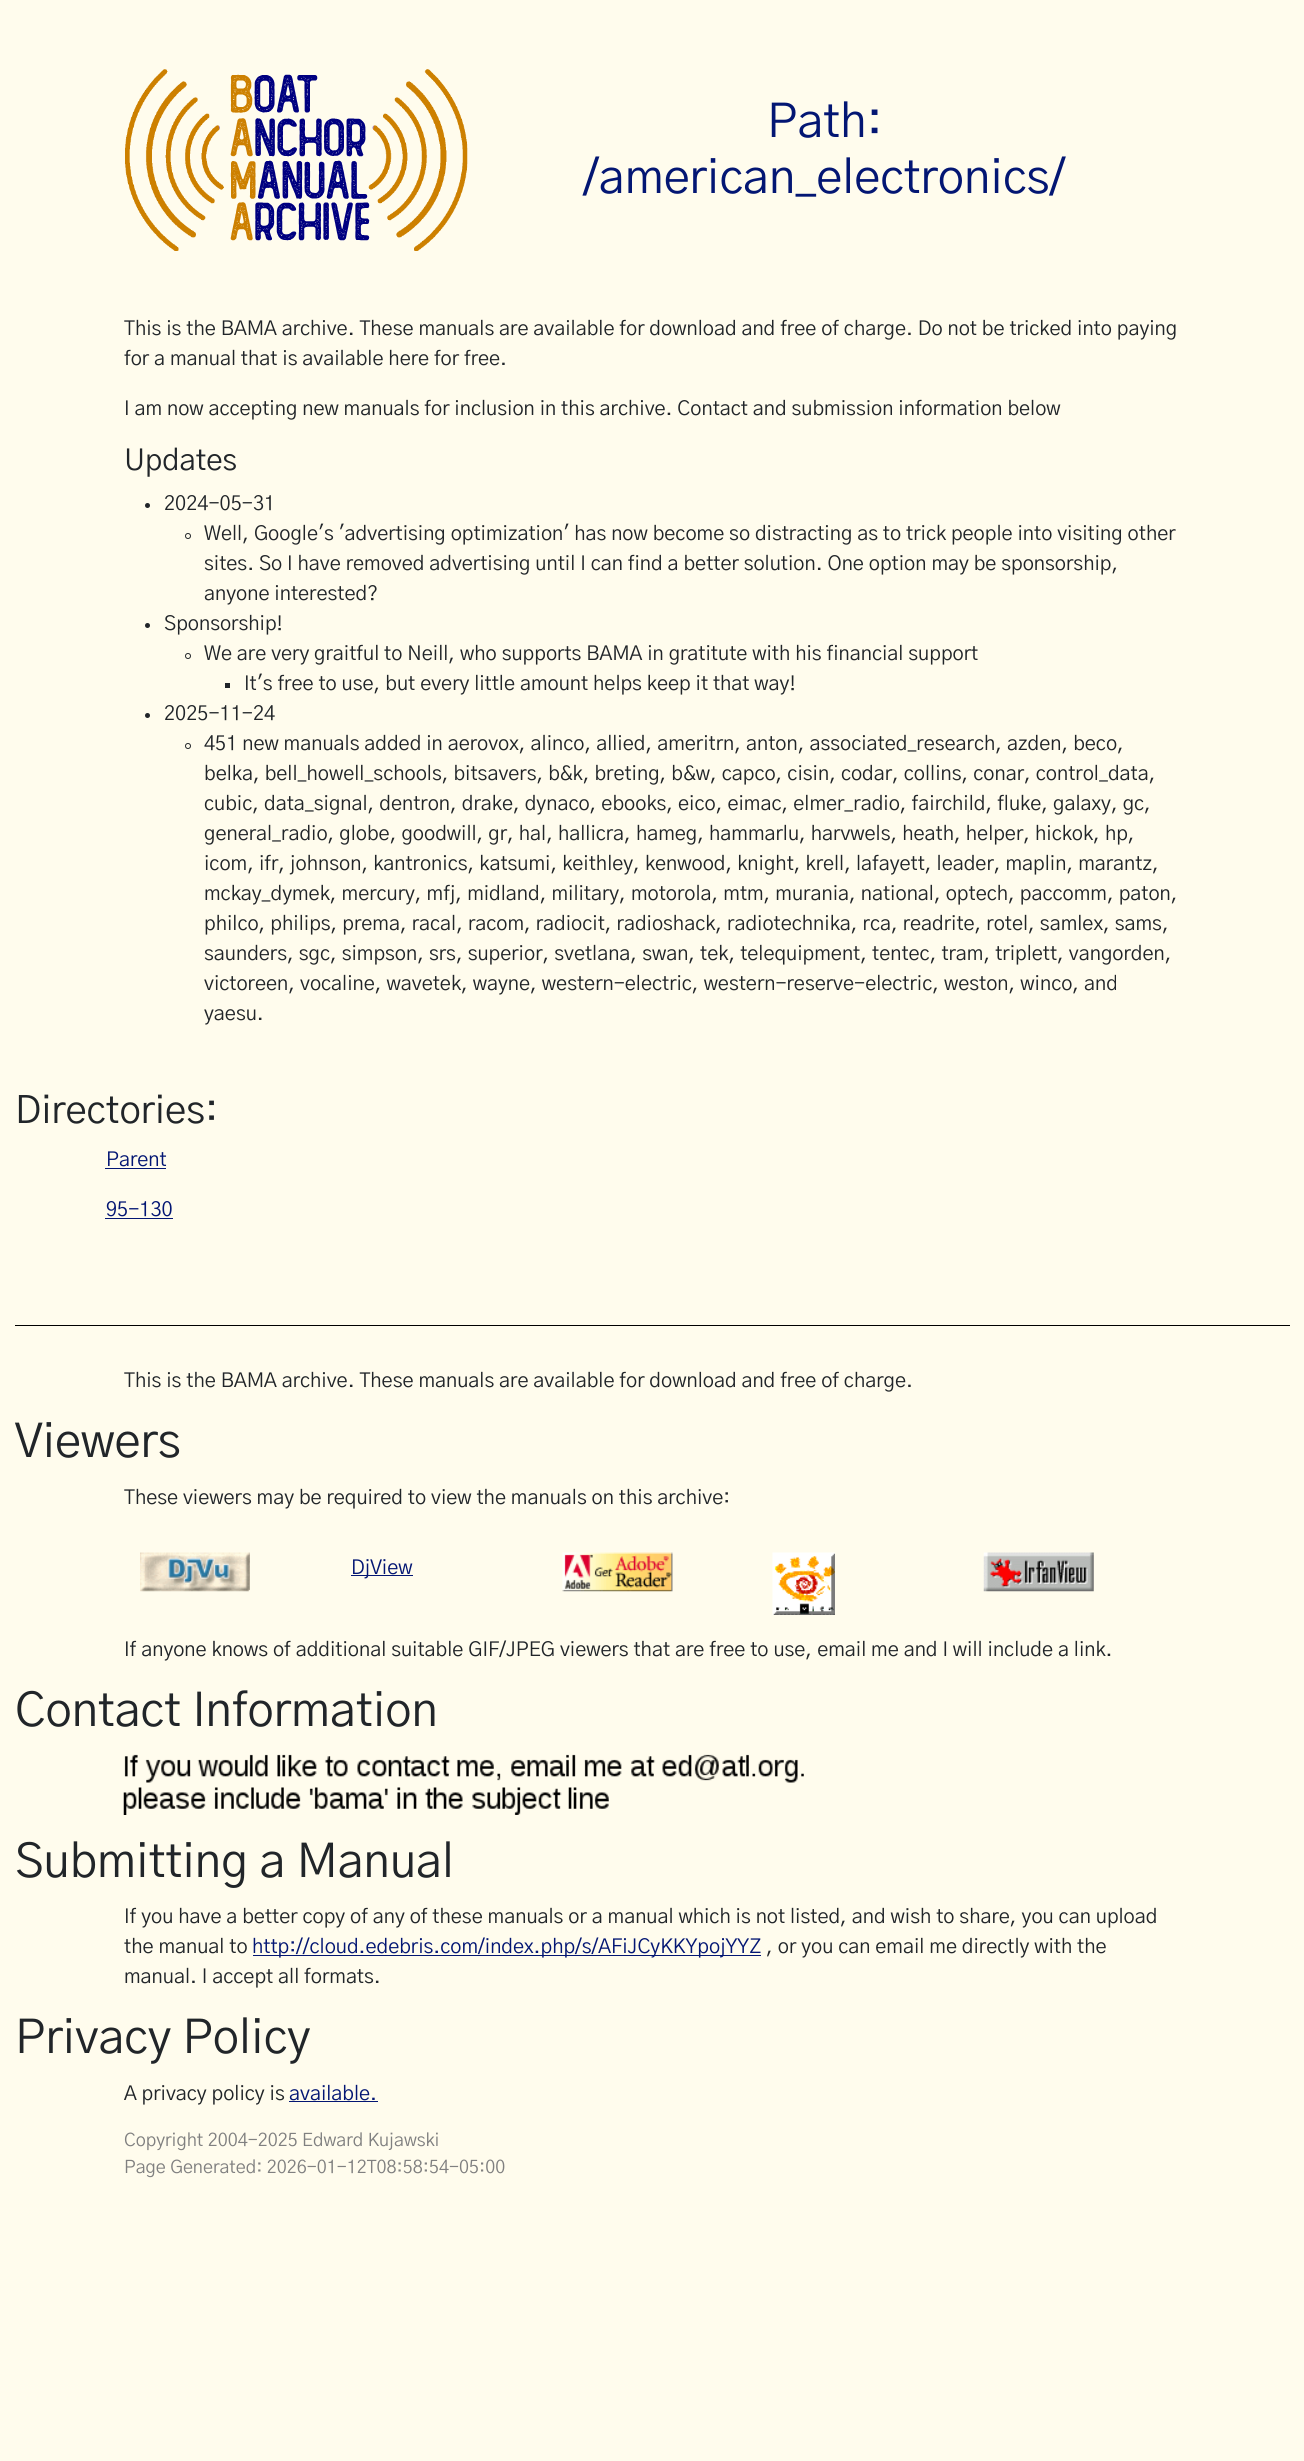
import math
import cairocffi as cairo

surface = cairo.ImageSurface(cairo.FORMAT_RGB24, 1304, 2461)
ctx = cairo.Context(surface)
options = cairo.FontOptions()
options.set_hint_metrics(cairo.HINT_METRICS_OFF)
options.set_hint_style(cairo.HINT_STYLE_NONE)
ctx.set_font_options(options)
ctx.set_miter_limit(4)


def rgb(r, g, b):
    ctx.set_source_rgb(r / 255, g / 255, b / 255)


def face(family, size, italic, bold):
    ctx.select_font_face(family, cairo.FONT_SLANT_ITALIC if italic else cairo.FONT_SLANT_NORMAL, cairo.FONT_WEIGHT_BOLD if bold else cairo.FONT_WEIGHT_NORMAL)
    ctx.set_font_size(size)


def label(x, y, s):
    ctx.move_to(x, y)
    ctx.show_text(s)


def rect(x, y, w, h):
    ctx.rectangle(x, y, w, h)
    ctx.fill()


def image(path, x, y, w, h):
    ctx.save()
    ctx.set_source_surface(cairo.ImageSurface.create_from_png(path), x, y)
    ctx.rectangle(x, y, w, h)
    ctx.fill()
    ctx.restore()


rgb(255, 252, 237)
ctx.paint()
image('image0.png', 125, 69, 343, 182)
face('Gothic A1', 47, 0, 0)
rgb(3, 22, 115)
label(767, 137, 'Path:')
label(583, 193, '/american_electronics/')
face('Gothic A1', 20, 0, 0)
rgb(33, 37, 41)
label(124, 335, 'This is the BAMA archive. These manuals are available for download and free of charge. Do not be tricked into paying')
label(124, 365, 'for a manual that is available here for free.')
label(124, 415, 'I am now accepting new manuals for inclusion in this archive. Contact and submission information below')
face('Gothic A1', 29.5, 0, 0)
label(124, 470, 'Updates')
ctx.new_path()
ctx.arc(147.5, 505.5, 2.5, 0, 2 * math.pi)
ctx.fill()
face('Gothic A1', 20, 0, 0)
label(164, 510, '2024-05-31')
ctx.new_path()
ctx.arc(188, 536, 2.5, 0, 2 * math.pi)
ctx.set_line_width(1)
ctx.stroke()
label(204, 540, 'Well, Google\'s \'advertising optimization\' has now become so distracting as to trick people into visiting other')
label(204, 570, 'sites. So I have removed advertising until I can find a better solution. One option may be sponsorship,')
label(204, 600, 'anyone interested?')
ctx.new_path()
ctx.arc(147.5, 625.5, 2.5, 0, 2 * math.pi)
ctx.fill()
label(164, 630, 'Sponsorship!')
ctx.new_path()
ctx.arc(188, 656, 2.5, 0, 2 * math.pi)
ctx.stroke()
label(204, 660, 'We are very graitful to Neill, who supports BAMA in gratitute with his financial support')
rect(225, 683, 5, 5)
label(244, 690, 'It\'s free to use, but every little amount helps keep it that way!')
ctx.new_path()
ctx.arc(147.5, 715.5, 2.5, 0, 2 * math.pi)
ctx.fill()
label(164, 720, '2025-11-24')
ctx.new_path()
ctx.arc(188, 746, 2.5, 0, 2 * math.pi)
ctx.stroke()
label(204, 750, '451 new manuals added in aerovox, alinco, allied, ameritrn, anton, associated_research, azden, beco,')
label(204, 780, 'belka, bell_howell_schools, bitsavers, b&k, breting, b&w, capco, cisin, codar, collins, conar, control_data,')
label(204, 810, 'cubic, data_signal, dentron, drake, dynaco, ebooks, eico, eimac, elmer_radio, fairchild, fluke, galaxy, gc,')
label(204, 840, 'general_radio, globe, goodwill, gr, hal, hallicra, hameg, hammarlu, harvwels, heath, helper, hickok, hp,')
label(204, 870, 'icom, ifr, johnson, kantronics, katsumi, keithley, kenwood, knight, krell, lafayett, leader, maplin, marantz,')
label(204, 900, 'mckay_dymek, mercury, mfj, midland, military, motorola, mtm, murania, national, optech, paccomm, paton,')
label(204, 930, 'philco, philips, prema, racal, racom, radiocit, radioshack, radiotechnika, rca, readrite, rotel, samlex, sams,')
label(204, 960, 'saunders, sgc, simpson, srs, superior, svetlana, swan, tek, telequipment, tentec, tram, triplett, vangorden,')
label(204, 990, 'victoreen, vocaline, wavetek, wayne, western-electric, western-reserve-electric, weston, winco, and')
label(204, 1020, 'yaesu.')
face('Gothic A1', 38.25, 0, 0)
label(15, 1123, 'Directories:')
face('Gothic A1', 20, 0, 0)
rgb(3, 22, 115)
label(106, 1166, 'Parent')
rect(105, 1168, 61, 1)
label(106, 1216, '95-130')
rect(105, 1218, 68, 1)
rgb(0, 0, 0)
rect(15, 1325, 1275, 1)
rgb(33, 37, 41)
label(124, 1387, 'This is the BAMA archive. These manuals are available for download and free of charge.')
face('Gothic A1', 47, 0, 0)
label(15, 1457, 'Viewers')
face('Gothic A1', 20, 0, 0)
label(124, 1504, 'These viewers may be required to view the manuals on this archive:')
image('image1.png', 140, 1552, 110, 40)
rgb(3, 22, 115)
rect(351, 1575, 62, 1)
label(351, 1574, 'DjView')
image('image2.png', 562, 1552, 111, 40)
image('image3.png', 772, 1552, 63, 63)
image('image4.png', 983, 1552, 111, 40)
rgb(33, 37, 41)
label(124, 1656, 'If anyone knows of additional suitable GIF/JPEG viewers that are free to use, email me and I will include a link.')
face('Gothic A1', 47, 0, 0)
label(15, 1726, 'Contact Information')
image('image5.png', 123, 1754, 681, 61)
label(15, 1877, 'Submitting a Manual')
face('Gothic A1', 20, 0, 0)
label(124, 1923, 'If you have a better copy of any of these manuals or a manual which is not listed, and wish to share, you can upload')
label(124, 1953, 'the manual to')
rgb(3, 22, 115)
rect(253, 1955, 508, 1)
label(252, 1953, 'http://cloud.edebris.com/index.php/s/AFiJCyKKYpojYYZ')
rgb(33, 37, 41)
label(766, 1953, ', or you can email me directly with the')
label(124, 1983, 'manual. I accept all formats.')
face('Gothic A1', 47, 0, 0)
label(15, 2053, 'Privacy Policy')
face('Gothic A1', 20, 0, 0)
label(124, 2100, 'A privacy policy is')
rgb(3, 22, 115)
label(289, 2100, 'available.')
rect(289, 2101, 89, 1)
face('Gothic A1', 18, 0, 0)
rgb(128, 128, 128)
label(124, 2146, 'Copyright 2004-2025 Edward Kujawski')
label(124, 2173, 'Page Generated: 2026-01-12T08:58:54-05:00')
surface.write_to_png('render.png')
